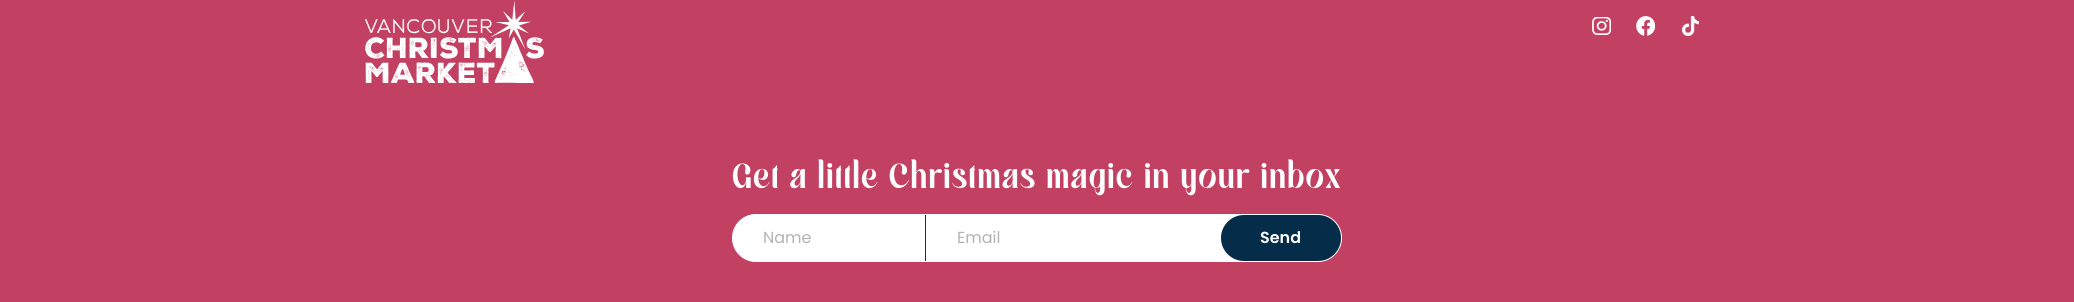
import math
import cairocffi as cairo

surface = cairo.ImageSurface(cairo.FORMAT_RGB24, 2074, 302)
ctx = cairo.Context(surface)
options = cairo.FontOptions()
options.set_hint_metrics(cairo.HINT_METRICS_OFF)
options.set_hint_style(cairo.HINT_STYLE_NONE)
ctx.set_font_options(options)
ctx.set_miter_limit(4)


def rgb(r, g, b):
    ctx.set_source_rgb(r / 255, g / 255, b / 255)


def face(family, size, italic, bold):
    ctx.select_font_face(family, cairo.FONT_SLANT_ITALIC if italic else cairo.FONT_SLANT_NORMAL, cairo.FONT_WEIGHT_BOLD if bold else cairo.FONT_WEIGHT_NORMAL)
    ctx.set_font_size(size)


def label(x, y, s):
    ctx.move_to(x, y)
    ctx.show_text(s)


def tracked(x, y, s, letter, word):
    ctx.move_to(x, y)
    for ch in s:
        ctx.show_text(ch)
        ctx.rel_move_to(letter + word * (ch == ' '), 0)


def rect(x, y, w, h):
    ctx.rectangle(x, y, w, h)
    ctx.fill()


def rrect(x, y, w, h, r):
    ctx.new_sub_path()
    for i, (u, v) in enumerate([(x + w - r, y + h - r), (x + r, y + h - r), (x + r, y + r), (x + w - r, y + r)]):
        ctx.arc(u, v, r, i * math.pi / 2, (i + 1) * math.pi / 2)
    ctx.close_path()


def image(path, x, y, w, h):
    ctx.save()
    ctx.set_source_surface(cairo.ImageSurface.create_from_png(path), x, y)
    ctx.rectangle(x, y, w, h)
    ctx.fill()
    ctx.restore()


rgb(194, 65, 99)
ctx.paint()
image('image0.png', 365, 0, 179, 84)
image('image1.png', 1592, 17, 19, 18)
image('image2.png', 1636, 16, 19, 20)
image('image3.png', 1681, 16, 18, 20)
face('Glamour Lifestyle', 35, 0, 0)
rgb(255, 255, 255)
tracked(732, 188, 'Get a little Christmas magic in your inbox', 1, 0)
rrect(732.5, 214.5, 609, 47, 23.5)
ctx.fill_preserve()
ctx.set_line_width(1)
ctx.stroke()
rgb(23, 50, 69)
rect(925, 215, 1, 46)
face('Poppins', 16, 0, 0)
rgb(179, 179, 179)
label(763, 243, 'Name')
label(957, 243, 'Email')
rgb(5, 45, 73)
rrect(1221, 215, 120, 46, 23)
ctx.fill()
face('Poppins SemiBold', 16, 0, 0)
rgb(255, 255, 255)
label(1260, 243, 'Send')
surface.write_to_png('render.png')
